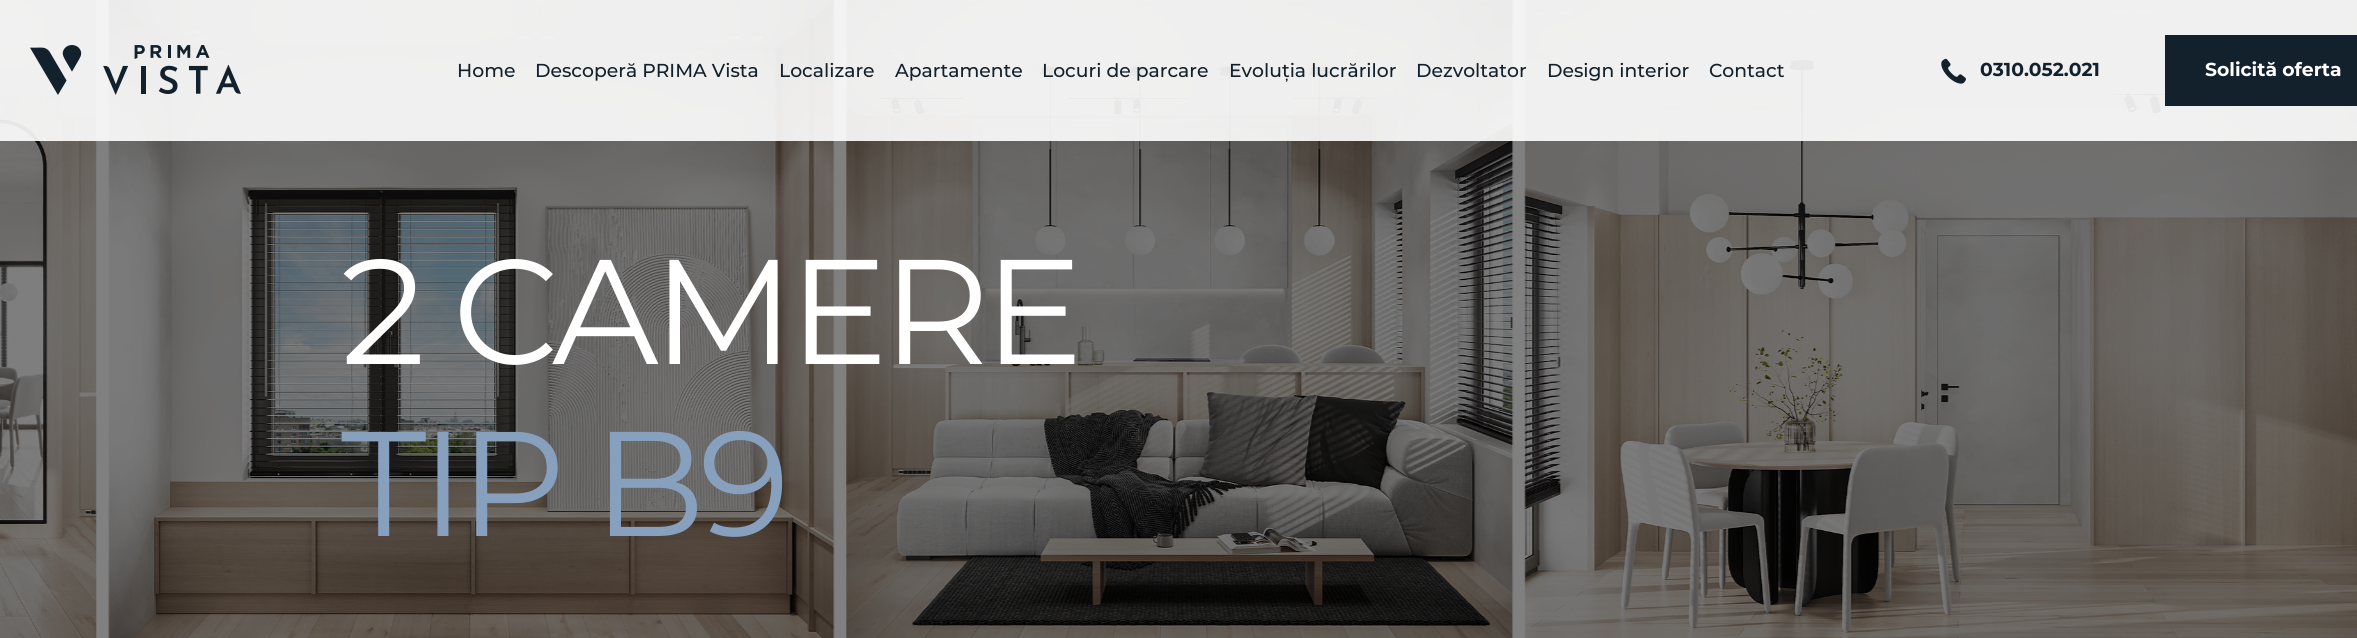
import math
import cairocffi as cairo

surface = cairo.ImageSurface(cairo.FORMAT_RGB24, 2357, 638)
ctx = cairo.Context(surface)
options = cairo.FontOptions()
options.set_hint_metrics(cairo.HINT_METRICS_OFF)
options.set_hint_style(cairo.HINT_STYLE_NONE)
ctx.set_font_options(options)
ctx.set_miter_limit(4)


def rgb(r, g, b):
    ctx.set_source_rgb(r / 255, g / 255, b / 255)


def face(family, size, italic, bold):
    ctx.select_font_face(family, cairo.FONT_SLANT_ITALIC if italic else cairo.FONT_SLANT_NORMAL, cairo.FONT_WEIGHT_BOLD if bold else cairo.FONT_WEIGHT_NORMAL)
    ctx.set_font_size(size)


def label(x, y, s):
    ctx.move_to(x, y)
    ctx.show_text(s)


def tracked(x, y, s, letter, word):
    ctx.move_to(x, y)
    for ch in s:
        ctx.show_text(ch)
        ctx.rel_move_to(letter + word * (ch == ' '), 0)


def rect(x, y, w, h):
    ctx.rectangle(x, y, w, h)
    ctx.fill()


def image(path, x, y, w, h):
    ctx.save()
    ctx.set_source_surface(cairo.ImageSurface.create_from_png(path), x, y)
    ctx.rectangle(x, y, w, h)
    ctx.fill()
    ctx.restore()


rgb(128, 128, 128)
ctx.paint()
image('image2.png', 0, 0, 97, 638)
image('image3.png', 108, 0, 727, 638)
image('image4.png', 846, 0, 668, 638)
image('image5.png', 1524, 0, 833, 638)
ctx.set_source_rgba(1, 1, 1, 0.9)
rect(0, 0, 2357, 141)
image('image0.png', 30, 45, 211, 50)
face('Montserrat Medium', 18.75, 0, 0)
rgb(19, 33, 44)
label(457, 77, 'Home')
label(535, 77, 'Descoperă PRIMA Vista')
label(779, 77, 'Localizare')
label(895, 77, 'Apartamente')
label(1042, 77, 'Locuri de parcare')
label(1229, 77, 'Evoluția lucrărilor')
label(1416, 77, 'Dezvoltator')
label(1547, 77, 'Design interior')
label(1709, 77, 'Contact')
image('image1.png', 1941, 58, 25, 26)
face('Montserrat', 18.75, 0, 1)
label(1980, 76, '0310.052.021')
rect(2165, 35, 192, 71)
rgb(255, 255, 255)
label(2205, 76, 'Solicită oferta')
face('Montserrat', 148.75, 0, 0)
tracked(341, 364, '2 CAMERE', -6, 0)
rgb(134, 160, 190)
tracked(341, 536, 'TIP B9', -6, 0)
surface.write_to_png('render.png')
